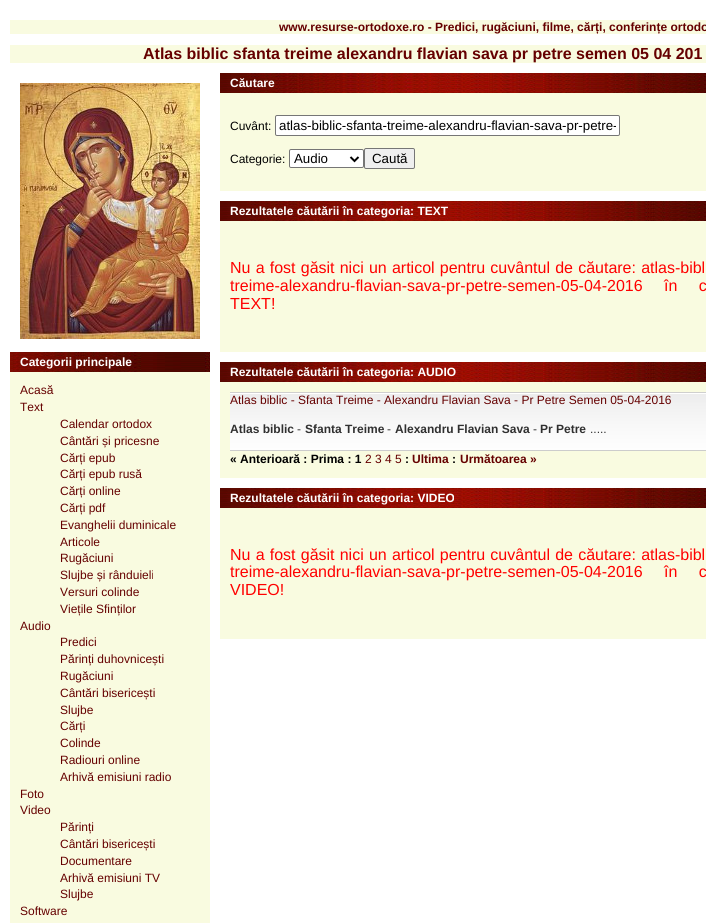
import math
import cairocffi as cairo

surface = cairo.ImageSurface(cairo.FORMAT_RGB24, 706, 923)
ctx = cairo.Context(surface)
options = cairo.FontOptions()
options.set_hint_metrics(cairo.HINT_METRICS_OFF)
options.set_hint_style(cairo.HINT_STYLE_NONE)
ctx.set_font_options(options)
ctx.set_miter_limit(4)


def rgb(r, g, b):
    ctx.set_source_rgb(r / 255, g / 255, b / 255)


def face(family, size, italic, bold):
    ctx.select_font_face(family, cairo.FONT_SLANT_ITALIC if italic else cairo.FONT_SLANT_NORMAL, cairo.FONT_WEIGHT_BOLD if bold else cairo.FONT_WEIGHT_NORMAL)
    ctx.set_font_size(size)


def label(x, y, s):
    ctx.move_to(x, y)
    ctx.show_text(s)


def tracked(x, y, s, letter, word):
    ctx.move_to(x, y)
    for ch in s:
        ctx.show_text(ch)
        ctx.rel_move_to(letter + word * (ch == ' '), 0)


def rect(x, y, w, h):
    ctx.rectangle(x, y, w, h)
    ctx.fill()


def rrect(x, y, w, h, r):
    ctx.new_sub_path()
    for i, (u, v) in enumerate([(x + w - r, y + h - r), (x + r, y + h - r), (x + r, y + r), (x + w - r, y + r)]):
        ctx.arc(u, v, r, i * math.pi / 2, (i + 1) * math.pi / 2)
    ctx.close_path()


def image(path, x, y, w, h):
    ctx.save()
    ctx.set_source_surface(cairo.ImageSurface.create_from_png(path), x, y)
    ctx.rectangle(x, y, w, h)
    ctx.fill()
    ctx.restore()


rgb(255, 255, 255)
ctx.paint()
rgb(249, 251, 224)
rect(10, 20, 696, 14)
face('Liberation Sans', 12, 0, 1)
rgb(101, 0, 0)
label(279, 31, 'www.resurse-ortodoxe.ro - Predici, rugăciuni, filme, cărți, conferințe ortodo')
rgb(249, 251, 224)
rect(10, 45, 696, 18)
face('Liberation Sans', 16, 0, 1)
rgb(101, 0, 0)
label(143, 59, 'Atlas biblic sfanta treime alexandru flavian sava pr petre semen 05 04 201')
image('image0.png', 20, 83, 180, 256)
rgb(249, 251, 224)
rect(10, 372, 200, 551)
image('image1.png', 10, 352, 200, 20)
face('Liberation Sans', 12, 0, 1)
rgb(255, 255, 255)
label(20, 366, 'Categorii principale')
face('Liberation Sans', 12, 0, 0)
rgb(101, 0, 0)
label(20, 394, 'Acasă')
label(20, 411, 'Text')
label(60, 428, 'Calendar ortodox')
label(60, 445, 'Cântări și pricesne')
label(60, 462, 'Cărți epub')
label(60, 478, 'Cărți epub rusă')
label(60, 495, 'Cărți online')
label(60, 512, 'Cărți pdf')
label(60, 529, 'Evanghelii duminicale')
label(60, 546, 'Articole')
label(60, 562, 'Rugăciuni')
label(60, 579, 'Slujbe și rânduieli')
label(60, 596, 'Versuri colinde')
label(60, 613, 'Viețile Sfinților')
label(20, 630, 'Audio')
label(60, 646, 'Predici')
label(60, 663, 'Părinți duhovnicești')
label(60, 680, 'Rugăciuni')
label(60, 697, 'Cântări bisericești')
label(60, 714, 'Slujbe')
label(60, 730, 'Cărți')
label(60, 747, 'Colinde')
label(60, 764, 'Radiouri online')
label(60, 781, 'Arhivă emisiuni radio')
label(20, 798, 'Foto')
label(20, 814, 'Video')
label(60, 831, 'Părinți')
label(60, 848, 'Cântări bisericești')
label(60, 865, 'Documentare')
label(60, 882, 'Arhivă emisiuni TV')
label(60, 898, 'Slujbe')
label(20, 915, 'Software')
rgb(249, 251, 224)
rect(220, 93, 486, 98)
image('image2.png', 220, 73, 486, 20)
face('Liberation Sans', 12, 0, 1)
rgb(255, 255, 255)
label(230, 87, 'Căutare')
face('Liberation Sans', 12, 0, 0)
rgb(0, 0, 0)
label(230, 130, 'Cuvânt:')
rgb(255, 255, 255)
rrect(275.5, 115.5, 344, 20, 1.5)
ctx.fill_preserve()
rgb(118, 118, 118)
ctx.set_line_width(1)
ctx.stroke()
ctx.save()
ctx.rectangle(279, 118, 337, 15)
ctx.clip()
face('Liberation Sans', 13.3, 0, 0)
rgb(0, 0, 0)
label(279, 130, 'atlas-biblic-sfanta-treime-alexandru-flavian-sava-pr-petre-')
ctx.restore()
rgb(0, 0, 0)
label(230, 163, 'Categorie:')
rgb(255, 255, 255)
rrect(289.5, 149.5, 74, 18, 1.5)
ctx.fill_preserve()
rgb(118, 118, 118)
ctx.stroke()
ctx.new_path()
ctx.move_to(350.5, 157)
ctx.line_to(354.5, 161)
ctx.line_to(358.5, 157)
rgb(0, 0, 0)
ctx.set_line_width(2)
ctx.stroke()
face('Liberation Sans', 13.3, 0, 0)
label(294, 163, 'Audio')
rgb(239, 239, 239)
rrect(364.5, 148.5, 50, 20, 1.5)
ctx.fill_preserve()
rgb(118, 118, 118)
ctx.set_line_width(1)
ctx.stroke()
rgb(0, 0, 0)
label(372, 163, 'Caută')
rgb(249, 251, 224)
rect(220, 221, 486, 131)
image('image2.png', 220, 201, 486, 20)
face('Liberation Sans', 12, 0, 1)
rgb(255, 255, 255)
label(230, 215, 'Rezultatele căutării în categoria: TEXT')
face('Liberation Sans', 16, 0, 0)
rgb(255, 0, 0)
tracked(230, 273, 'Nu a fost găsit nici un articol pentru cuvântul de căutare: atlas-bibli', 0, 0.75)
tracked(230, 291, 'treime-alexandru-flavian-sava-pr-petre-semen-05-04-2016 în c', 0, 17)
label(230, 309, 'TEXT!')
rgb(249, 251, 224)
rect(220, 382, 486, 96)
image('image2.png', 220, 362, 486, 20)
face('Liberation Sans', 12, 0, 1)
rgb(255, 255, 255)
label(230, 376, 'Rezultatele căutării în categoria: AUDIO')
image('image3.png', 230, 392, 476, 58)
rgb(204, 204, 204)
rect(230, 450, 476, 1)
face('Liberation Sans', 12, 0, 0)
rgb(101, 0, 0)
label(230, 404, 'Atlas biblic - Sfanta Treime - Alexandru Flavian Sava - Pr Petre Semen 05-04-2016')
face('Liberation Sans', 12, 0, 1)
rgb(48, 48, 48)
label(230, 433, 'Atlas biblic')
face('Liberation Sans', 12, 0, 0)
label(297, 433, '-')
face('Liberation Sans', 12, 0, 1)
label(305, 433, 'Sfanta Treime')
face('Liberation Sans', 12, 0, 0)
label(387, 433, '-')
face('Liberation Sans', 12, 0, 1)
label(395, 433, 'Alexandru Flavian Sava')
face('Liberation Sans', 12, 0, 0)
label(533, 433, '-')
face('Liberation Sans', 12, 0, 1)
label(540, 433, 'Pr Petre')
face('Liberation Sans', 12, 0, 0)
label(590, 433, '.....')
face('Liberation Sans', 12, 0, 1)
rgb(0, 0, 0)
label(230, 463, '« Anterioară : Prima : 1')
face('Liberation Sans', 12, 0, 0)
rgb(101, 0, 0)
label(365, 463, '2 3 4 5')
face('Liberation Sans', 12, 0, 1)
rgb(0, 0, 0)
label(405, 463, ':')
rgb(101, 0, 0)
label(412, 463, 'Ultima')
rgb(0, 0, 0)
label(452, 463, ':')
rgb(101, 0, 0)
label(460, 463, 'Următoarea »')
rgb(249, 251, 224)
rect(220, 508, 486, 131)
image('image2.png', 220, 488, 486, 20)
rgb(255, 255, 255)
label(230, 502, 'Rezultatele căutării în categoria: VIDEO')
face('Liberation Sans', 16, 0, 0)
rgb(255, 0, 0)
tracked(230, 560, 'Nu a fost găsit nici un articol pentru cuvântul de căutare: atlas-bibli', 0, 0.75)
tracked(230, 577, 'treime-alexandru-flavian-sava-pr-petre-semen-05-04-2016 în c', 0, 17)
label(230, 595, 'VIDEO!')
surface.write_to_png('render.png')
